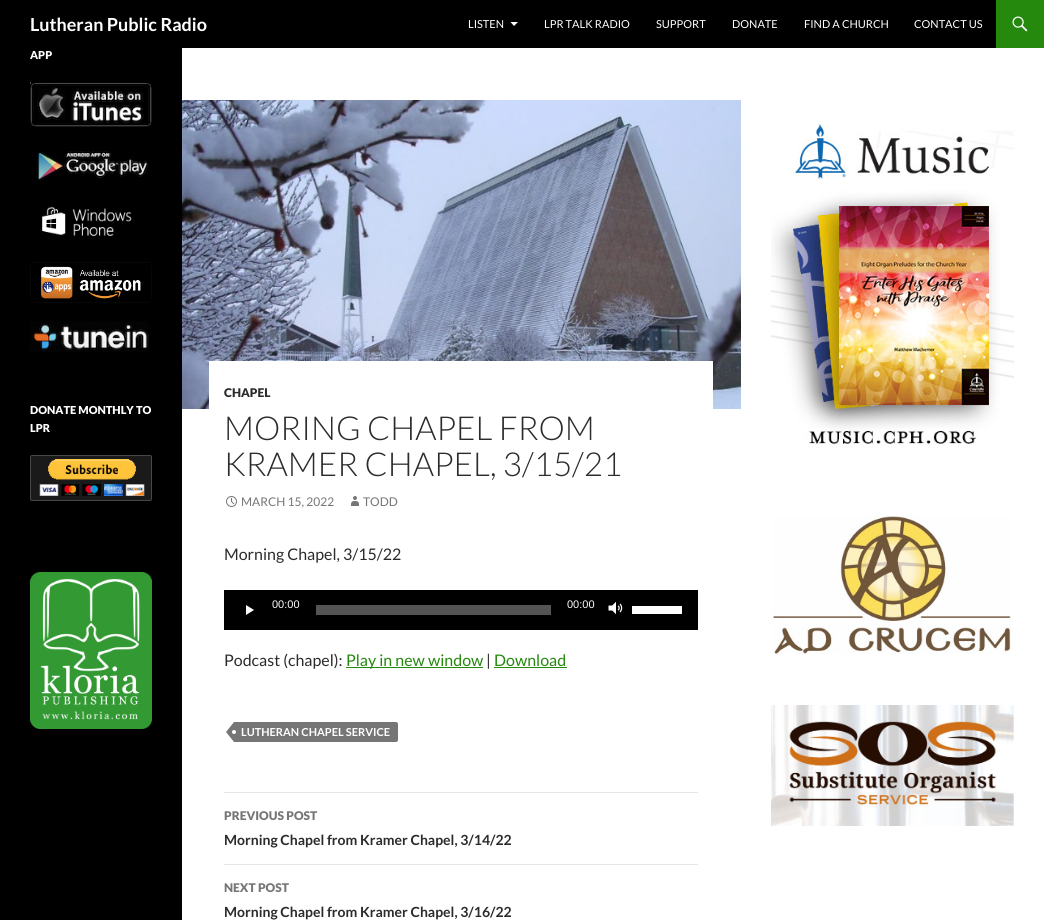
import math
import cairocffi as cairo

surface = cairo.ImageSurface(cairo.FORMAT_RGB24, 1044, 920)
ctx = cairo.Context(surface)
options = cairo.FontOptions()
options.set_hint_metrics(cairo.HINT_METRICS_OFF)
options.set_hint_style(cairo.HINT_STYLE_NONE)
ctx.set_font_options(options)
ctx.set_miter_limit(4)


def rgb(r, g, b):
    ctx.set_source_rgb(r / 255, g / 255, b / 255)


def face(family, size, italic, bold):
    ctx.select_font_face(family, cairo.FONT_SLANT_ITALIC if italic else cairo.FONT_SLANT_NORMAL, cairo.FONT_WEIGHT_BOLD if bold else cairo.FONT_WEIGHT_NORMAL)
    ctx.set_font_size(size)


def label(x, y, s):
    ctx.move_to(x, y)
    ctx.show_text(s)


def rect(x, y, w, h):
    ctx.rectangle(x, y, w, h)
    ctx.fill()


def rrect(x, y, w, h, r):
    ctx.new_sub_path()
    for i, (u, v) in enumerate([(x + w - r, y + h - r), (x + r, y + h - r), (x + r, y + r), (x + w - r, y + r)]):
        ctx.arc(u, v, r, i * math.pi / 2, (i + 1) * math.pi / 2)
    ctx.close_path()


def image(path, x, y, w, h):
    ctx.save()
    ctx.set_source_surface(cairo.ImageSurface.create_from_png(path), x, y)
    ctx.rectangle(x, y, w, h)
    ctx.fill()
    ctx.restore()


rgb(255, 255, 255)
ctx.paint()
rgb(0, 0, 0)
rect(0, 0, 996, 48)
face('Lato', 18, 0, 1)
rgb(255, 255, 255)
label(30, 31, 'Lutheran Public Radio')
face('Lato', 11, 0, 0)
label(468, 28, 'LISTEN')
ctx.new_path()
ctx.move_to(510.5, 22)
ctx.line_to(518, 22)
ctx.line_to(514, 26)
ctx.close_path()
ctx.fill()
label(544, 28, 'LPR TALK RADIO')
label(656, 28, 'SUPPORT')
label(732, 28, 'DONATE')
label(804, 28, 'FIND A CHURCH')
label(914, 28, 'CONTACT US')
rgb(36, 137, 13)
rect(996, 0, 48, 48)
image('image0.png', 1012, 16, 16, 16)
rgb(0, 0, 0)
rect(0, 48, 182, 872)
face('Lato Black', 11, 0, 0)
rgb(255, 255, 255)
label(30, 59, 'APP')
image('image1.png', 30, 82, 122, 45)
image('image2.png', 36, 151, 113, 30)
image('image3.png', 42, 206, 90, 30)
image('image4.png', 30, 262, 122, 41)
image('image5.png', 30, 321, 119, 31)
label(30, 414, 'DONATE MONTHLY TO')
label(30, 432, 'LPR')
rgb(26, 26, 26)
rrect(30, 455, 122, 46, 2)
ctx.fill()
rrect(30.5, 455.5, 121, 45, 1.5)
ctx.set_source_rgba(1, 1, 1, 0.2)
ctx.set_line_width(1)
ctx.stroke()
image('image6.png', 39, 459, 106, 37)
image('image7.png', 30, 572, 122, 157)
image('image8.png', 182, 100, 559, 309)
rgb(255, 255, 255)
rect(209, 361, 504, 48)
face('Lato Black', 12, 0, 0)
rgb(43, 43, 43)
label(224, 397, 'CHAPEL')
face('Lato Light', 33, 0, 0)
label(224, 440, 'MORING CHAPEL FROM')
label(224, 476, 'KRAMER CHAPEL, 3/15/21')
image('image9.png', 226, 496, 11, 11)
face('Lato', 12, 0, 0)
rgb(118, 118, 118)
label(241, 506, 'MARCH 15, 2022')
image('image10.png', 351, 496, 8, 10)
label(363, 506, 'TODD')
face('Lato', 16, 0, 0)
rgb(43, 43, 43)
label(224, 560, 'Morning Chapel, 3/15/22')
rgb(0, 0, 0)
rect(224, 590, 474, 40)
rgb(255, 255, 255)
ctx.new_path()
ctx.move_to(246, 605)
ctx.line_to(254, 610)
ctx.line_to(246, 615)
ctx.close_path()
ctx.fill()
face('Liberation Sans', 11, 0, 0)
label(272, 608, '00:00')
rgb(84, 84, 84)
rect(316, 605, 235, 10)
rgb(255, 255, 255)
label(567, 608, '00:00')
image('image11.png', 608, 601, 15, 14)
rect(632, 606, 50, 8)
face('Lato', 16, 0, 0)
rgb(43, 43, 43)
label(224, 666, 'Podcast (chapel):')
rgb(36, 137, 13)
rect(346, 667, 137, 1)
label(346, 666, 'Play in new window')
rgb(43, 43, 43)
label(486, 666, '|')
rgb(36, 137, 13)
label(494, 666, 'Download')
rect(494, 667, 73, 1)
rgb(118, 118, 118)
ctx.new_path()
ctx.move_to(234, 722)
ctx.line_to(396, 722)
ctx.curve_to(397, 722, 398, 723, 398, 724)
ctx.line_to(398, 740)
ctx.curve_to(398, 741, 397, 742, 396, 742)
ctx.line_to(234, 742)
ctx.close_path()
ctx.fill()
ctx.new_path()
ctx.move_to(234, 722)
ctx.line_to(234, 742)
ctx.line_to(226, 732)
ctx.close_path()
ctx.fill()
face('Lato', 11, 0, 1)
rgb(255, 255, 255)
label(241, 736, 'LUTHERAN CHAPEL SERVICE')
ctx.new_path()
ctx.arc(234, 732, 2, 0, 2 * math.pi)
ctx.fill()
rgb(230, 230, 230)
rect(224, 792, 474, 1)
rect(224, 864, 474, 1)
face('Lato Black', 12, 0, 0)
rgb(118, 118, 118)
label(224, 820, 'PREVIOUS POST')
face('Lato', 14, 0, 1)
rgb(43, 43, 43)
label(224, 845, 'Morning Chapel from Kramer Chapel, 3/14/22')
face('Lato Black', 12, 0, 0)
rgb(118, 118, 118)
label(224, 892, 'NEXT POST')
face('Lato', 14, 0, 1)
rgb(43, 43, 43)
label(224, 917, 'Morning Chapel from Kramer Chapel, 3/16/22')
image('image12.png', 771, 120, 243, 329)
image('image13.png', 772, 516, 239, 138)
image('image14.png', 771, 705, 243, 121)
surface.write_to_png('render.png')
